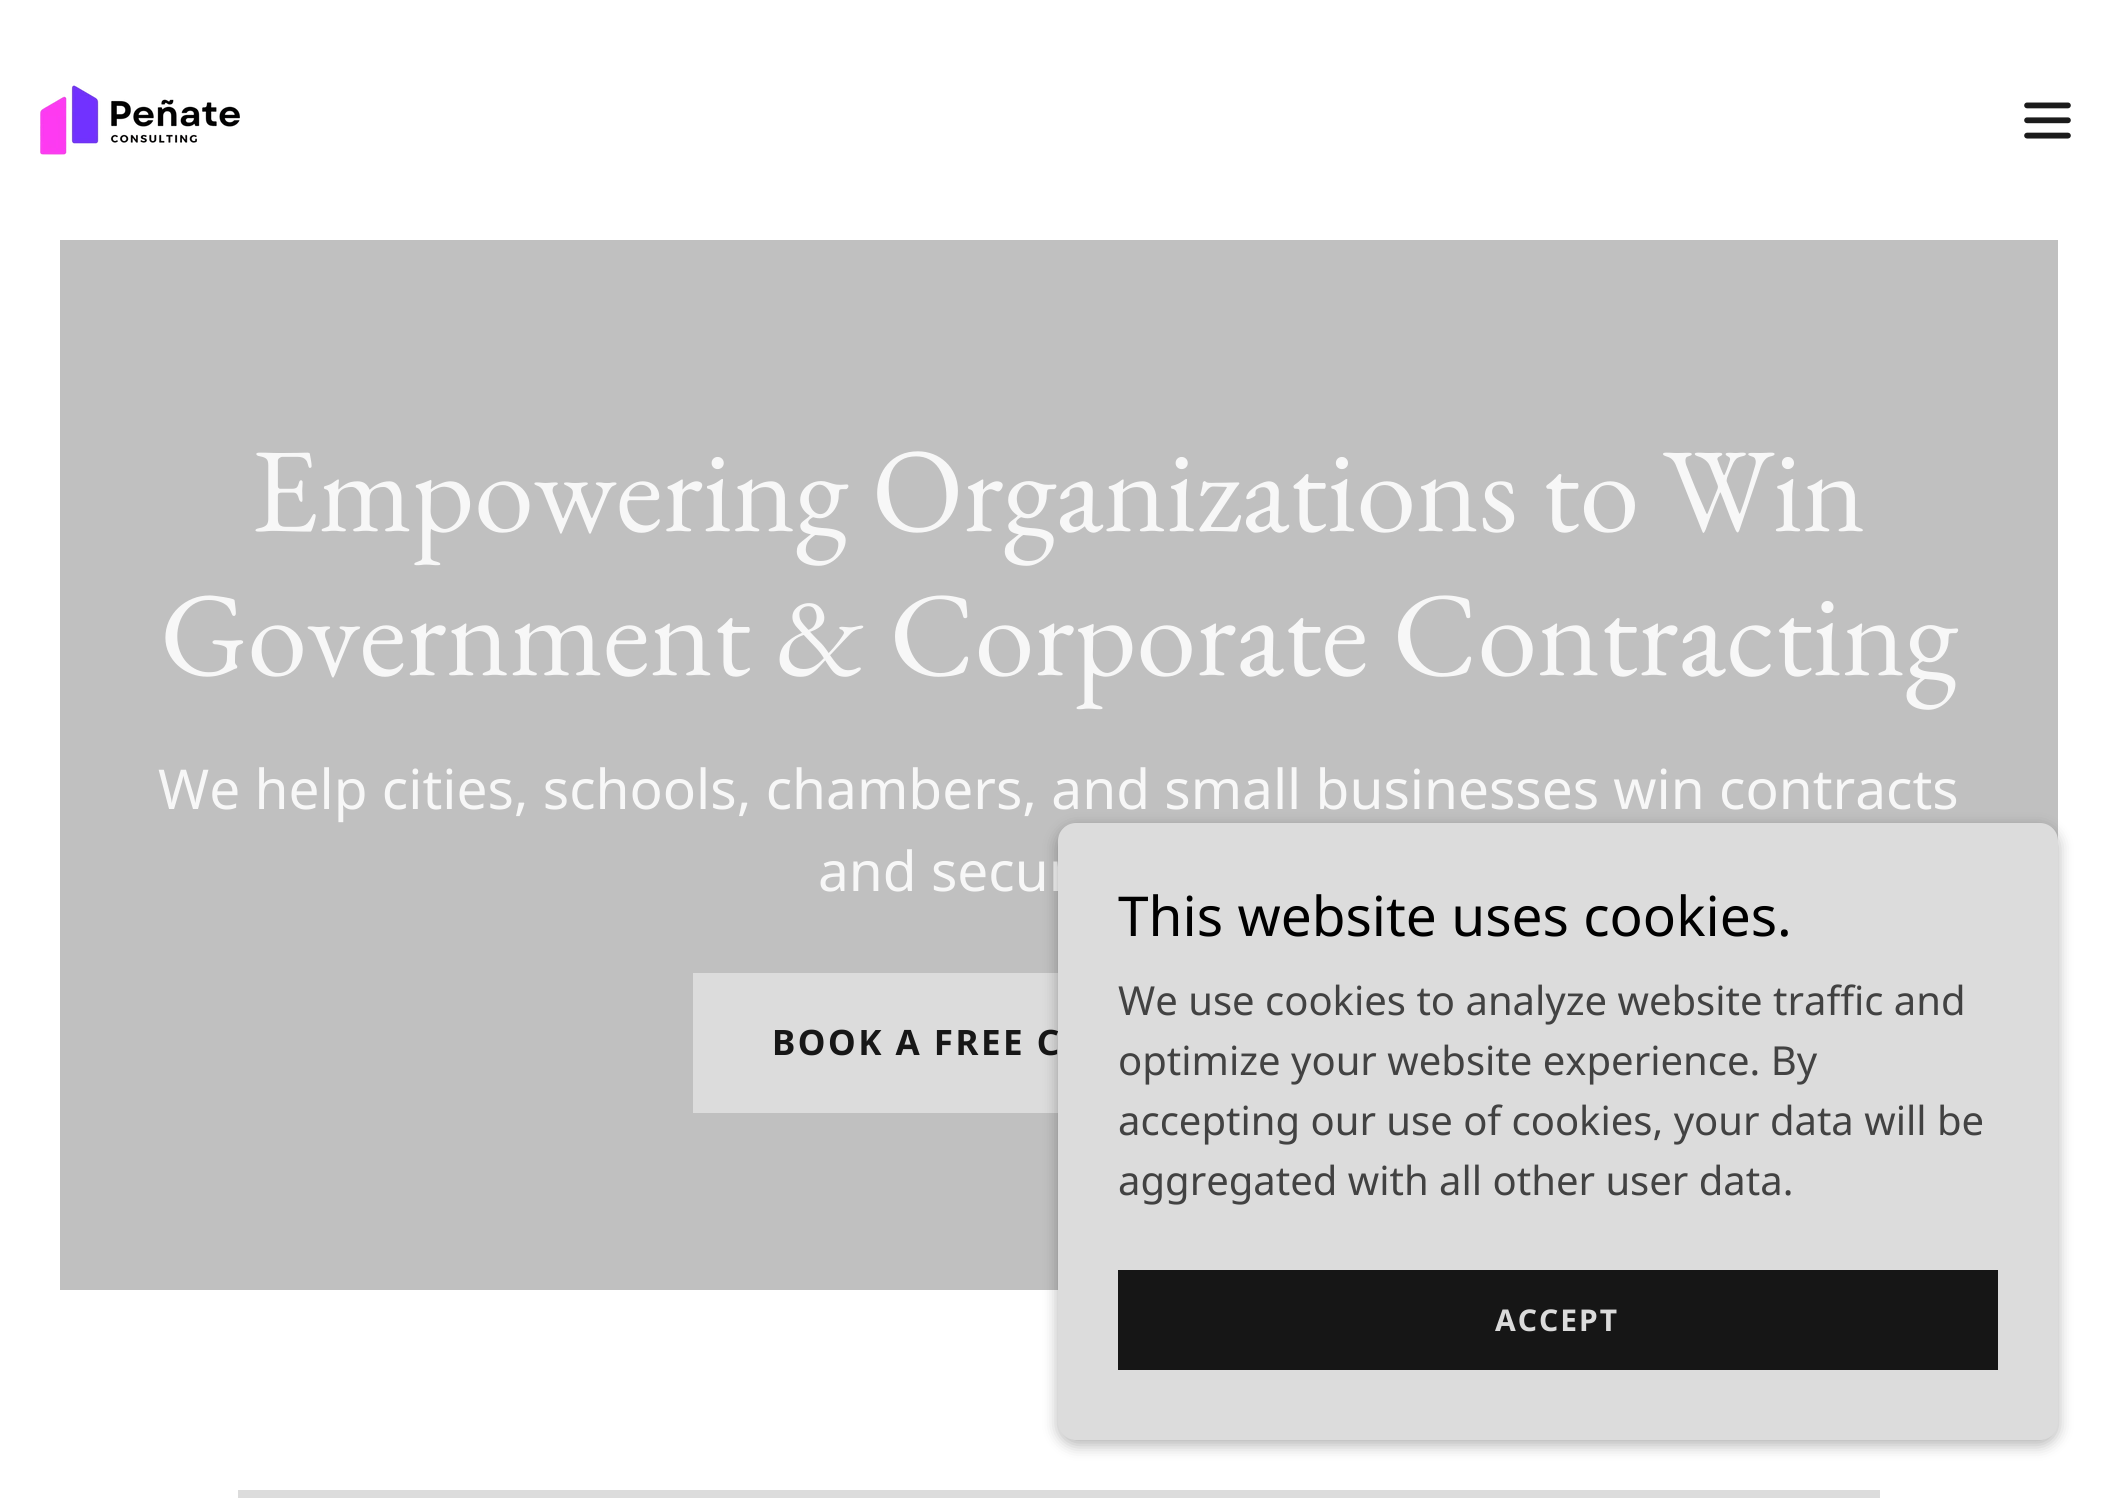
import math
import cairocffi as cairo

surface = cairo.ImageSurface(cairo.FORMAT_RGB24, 2117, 1498)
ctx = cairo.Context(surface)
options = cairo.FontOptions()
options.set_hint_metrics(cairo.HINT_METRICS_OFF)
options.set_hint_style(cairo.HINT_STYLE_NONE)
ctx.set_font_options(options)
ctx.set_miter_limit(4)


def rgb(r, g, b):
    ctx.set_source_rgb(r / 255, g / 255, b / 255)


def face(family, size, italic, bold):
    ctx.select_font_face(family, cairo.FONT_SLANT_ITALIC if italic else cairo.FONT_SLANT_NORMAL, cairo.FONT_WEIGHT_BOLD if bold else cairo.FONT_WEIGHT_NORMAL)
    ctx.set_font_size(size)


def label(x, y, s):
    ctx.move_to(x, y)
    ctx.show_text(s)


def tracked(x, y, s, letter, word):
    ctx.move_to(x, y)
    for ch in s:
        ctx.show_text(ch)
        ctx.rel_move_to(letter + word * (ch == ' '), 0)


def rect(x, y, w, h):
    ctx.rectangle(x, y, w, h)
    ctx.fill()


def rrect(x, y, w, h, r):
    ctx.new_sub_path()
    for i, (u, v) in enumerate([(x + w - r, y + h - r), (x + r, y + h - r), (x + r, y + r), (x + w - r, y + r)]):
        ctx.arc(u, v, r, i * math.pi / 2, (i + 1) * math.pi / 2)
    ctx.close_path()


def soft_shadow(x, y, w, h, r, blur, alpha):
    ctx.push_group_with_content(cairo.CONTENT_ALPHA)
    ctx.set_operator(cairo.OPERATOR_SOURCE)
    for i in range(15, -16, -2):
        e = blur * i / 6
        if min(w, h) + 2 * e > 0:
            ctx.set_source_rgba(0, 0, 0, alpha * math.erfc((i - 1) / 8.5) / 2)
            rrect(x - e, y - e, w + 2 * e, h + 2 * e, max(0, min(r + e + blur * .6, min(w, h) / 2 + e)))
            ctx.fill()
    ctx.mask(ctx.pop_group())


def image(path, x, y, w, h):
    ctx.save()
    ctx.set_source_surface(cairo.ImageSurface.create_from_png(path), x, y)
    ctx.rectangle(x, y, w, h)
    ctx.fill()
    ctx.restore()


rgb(255, 255, 255)
ctx.paint()
image('image0.png', 40, 85, 200, 70)
image('image1.png', 2024, 102, 47, 37)
rgb(192, 192, 192)
rect(60, 240, 1998, 1050)
face('EB Garamond', 120, 0, 0)
rgb(247, 247, 247)
label(251, 531, 'Empowering Organizations to Win')
label(160, 675, 'Government & Corporate Contracting')
face('Noto Sans', 55, 0, 0)
label(158, 809, 'We help cities, schools, chambers, and small businesses win contracts')
label(818, 891, 'and secur')
rgb(220, 220, 220)
rect(693, 973, 365, 140)
face('Noto Sans', 35, 0, 1)
rgb(23, 23, 23)
tracked(772, 1055, 'BOOK A FREE C', 2.5, 0)
rgb(0, 0, 0)
soft_shadow(1058, 828, 1000, 617, 18, 7.5, 0.3)
rgb(220, 220, 220)
rrect(1058, 823, 1000, 617, 18)
ctx.fill()
face('Noto Sans', 55, 0, 0)
rgb(0, 0, 0)
label(1118, 936, 'This website uses cookies.')
face('Noto Sans', 40, 0, 0)
rgb(66, 66, 66)
label(1118, 1015, 'We use cookies to analyze website traffic and')
label(1118, 1075, 'optimize your website experience. By')
label(1118, 1135, 'accepting our use of cookies, your data will be')
label(1118, 1195, 'aggregated with all other user data.')
rgb(22, 22, 22)
rect(1118, 1270, 880, 100)
face('Noto Sans', 30, 0, 1)
rgb(219, 219, 219)
tracked(1495, 1331, 'ACCEPT', 2, 0)
rgb(220, 220, 220)
rect(238, 1490, 1642, 8)
surface.write_to_png('render.png')
